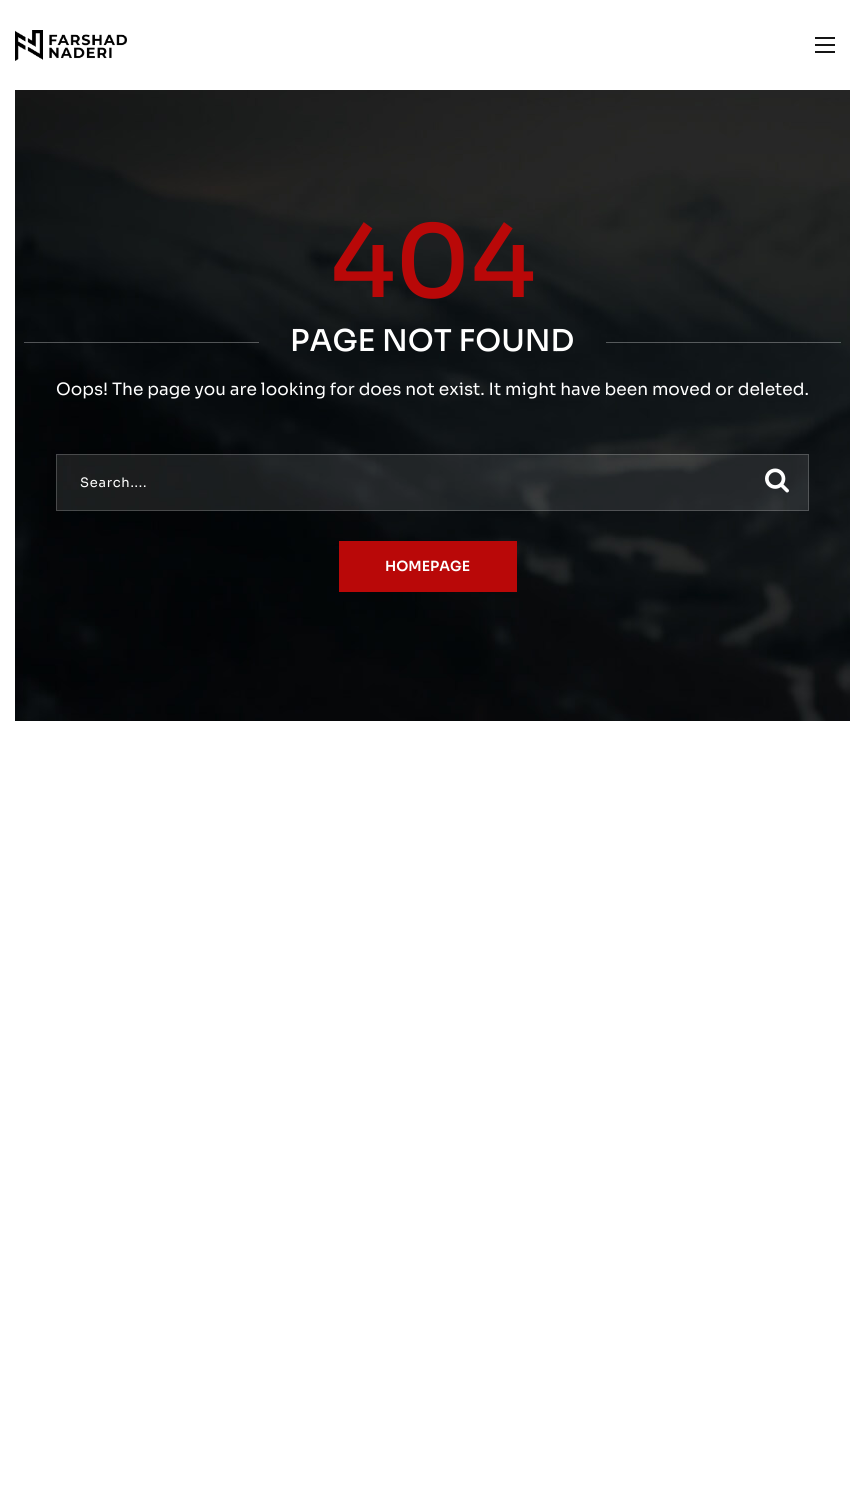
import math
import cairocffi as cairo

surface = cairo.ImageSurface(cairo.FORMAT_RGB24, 865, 1510)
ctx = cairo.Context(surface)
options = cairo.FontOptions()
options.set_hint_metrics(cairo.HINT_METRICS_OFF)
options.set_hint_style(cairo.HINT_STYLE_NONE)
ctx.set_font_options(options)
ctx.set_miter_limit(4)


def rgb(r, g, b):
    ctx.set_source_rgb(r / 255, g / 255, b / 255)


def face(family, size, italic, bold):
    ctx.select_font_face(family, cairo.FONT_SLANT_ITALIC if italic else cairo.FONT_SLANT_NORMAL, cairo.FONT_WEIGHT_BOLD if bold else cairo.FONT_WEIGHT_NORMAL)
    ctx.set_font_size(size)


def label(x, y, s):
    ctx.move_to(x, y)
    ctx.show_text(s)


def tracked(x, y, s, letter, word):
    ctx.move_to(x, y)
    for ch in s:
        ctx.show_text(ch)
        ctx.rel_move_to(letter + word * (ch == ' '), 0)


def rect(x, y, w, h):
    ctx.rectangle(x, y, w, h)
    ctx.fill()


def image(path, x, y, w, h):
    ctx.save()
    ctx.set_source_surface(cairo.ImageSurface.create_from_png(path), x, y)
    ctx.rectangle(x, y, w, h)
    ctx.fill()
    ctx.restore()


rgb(255, 255, 255)
ctx.paint()
image('image0.png', 15, 30, 112, 31)
rgb(21, 21, 21)
rect(815, 37, 20, 2)
rect(815, 44, 20, 2)
rect(815, 51, 20, 2)
image('image1.png', 15, 90, 835, 631)
face('Sora Medium', 100, 0, 0)
rgb(185, 8, 8)
label(330, 297, '404')
ctx.set_source_rgba(1, 1, 1, 0.3)
rect(24, 342, 235, 1)
face('Sora Medium', 30, 0, 0)
rgb(255, 255, 255)
label(290, 351, 'PAGE NOT FOUND')
ctx.set_source_rgba(1, 1, 1, 0.3)
rect(606, 342, 235, 1)
face('Sora', 17, 0, 0)
rgb(255, 255, 255)
label(56, 395, 'Oops! The page you are looking for does not exist. It might have been moved or deleted.')
ctx.set_source_rgba(1, 1, 1, 0.1)
rect(56, 454, 753, 57)
ctx.rectangle(56.5, 454.5, 752, 56)
ctx.set_source_rgba(1, 1, 1, 0.2)
ctx.set_line_width(1)
ctx.stroke()
face('Sora', 13, 0, 0)
rgb(255, 255, 255)
tracked(80, 487, 'Search....', 0.75, 0)
image('image2.png', 765, 468, 24, 25)
rgb(185, 8, 8)
rect(339, 541, 178, 51)
face('Sora SemiBold', 14, 0, 0)
rgb(255, 255, 255)
label(385, 571, 'HOMEPAGE')
surface.write_to_png('render.png')
